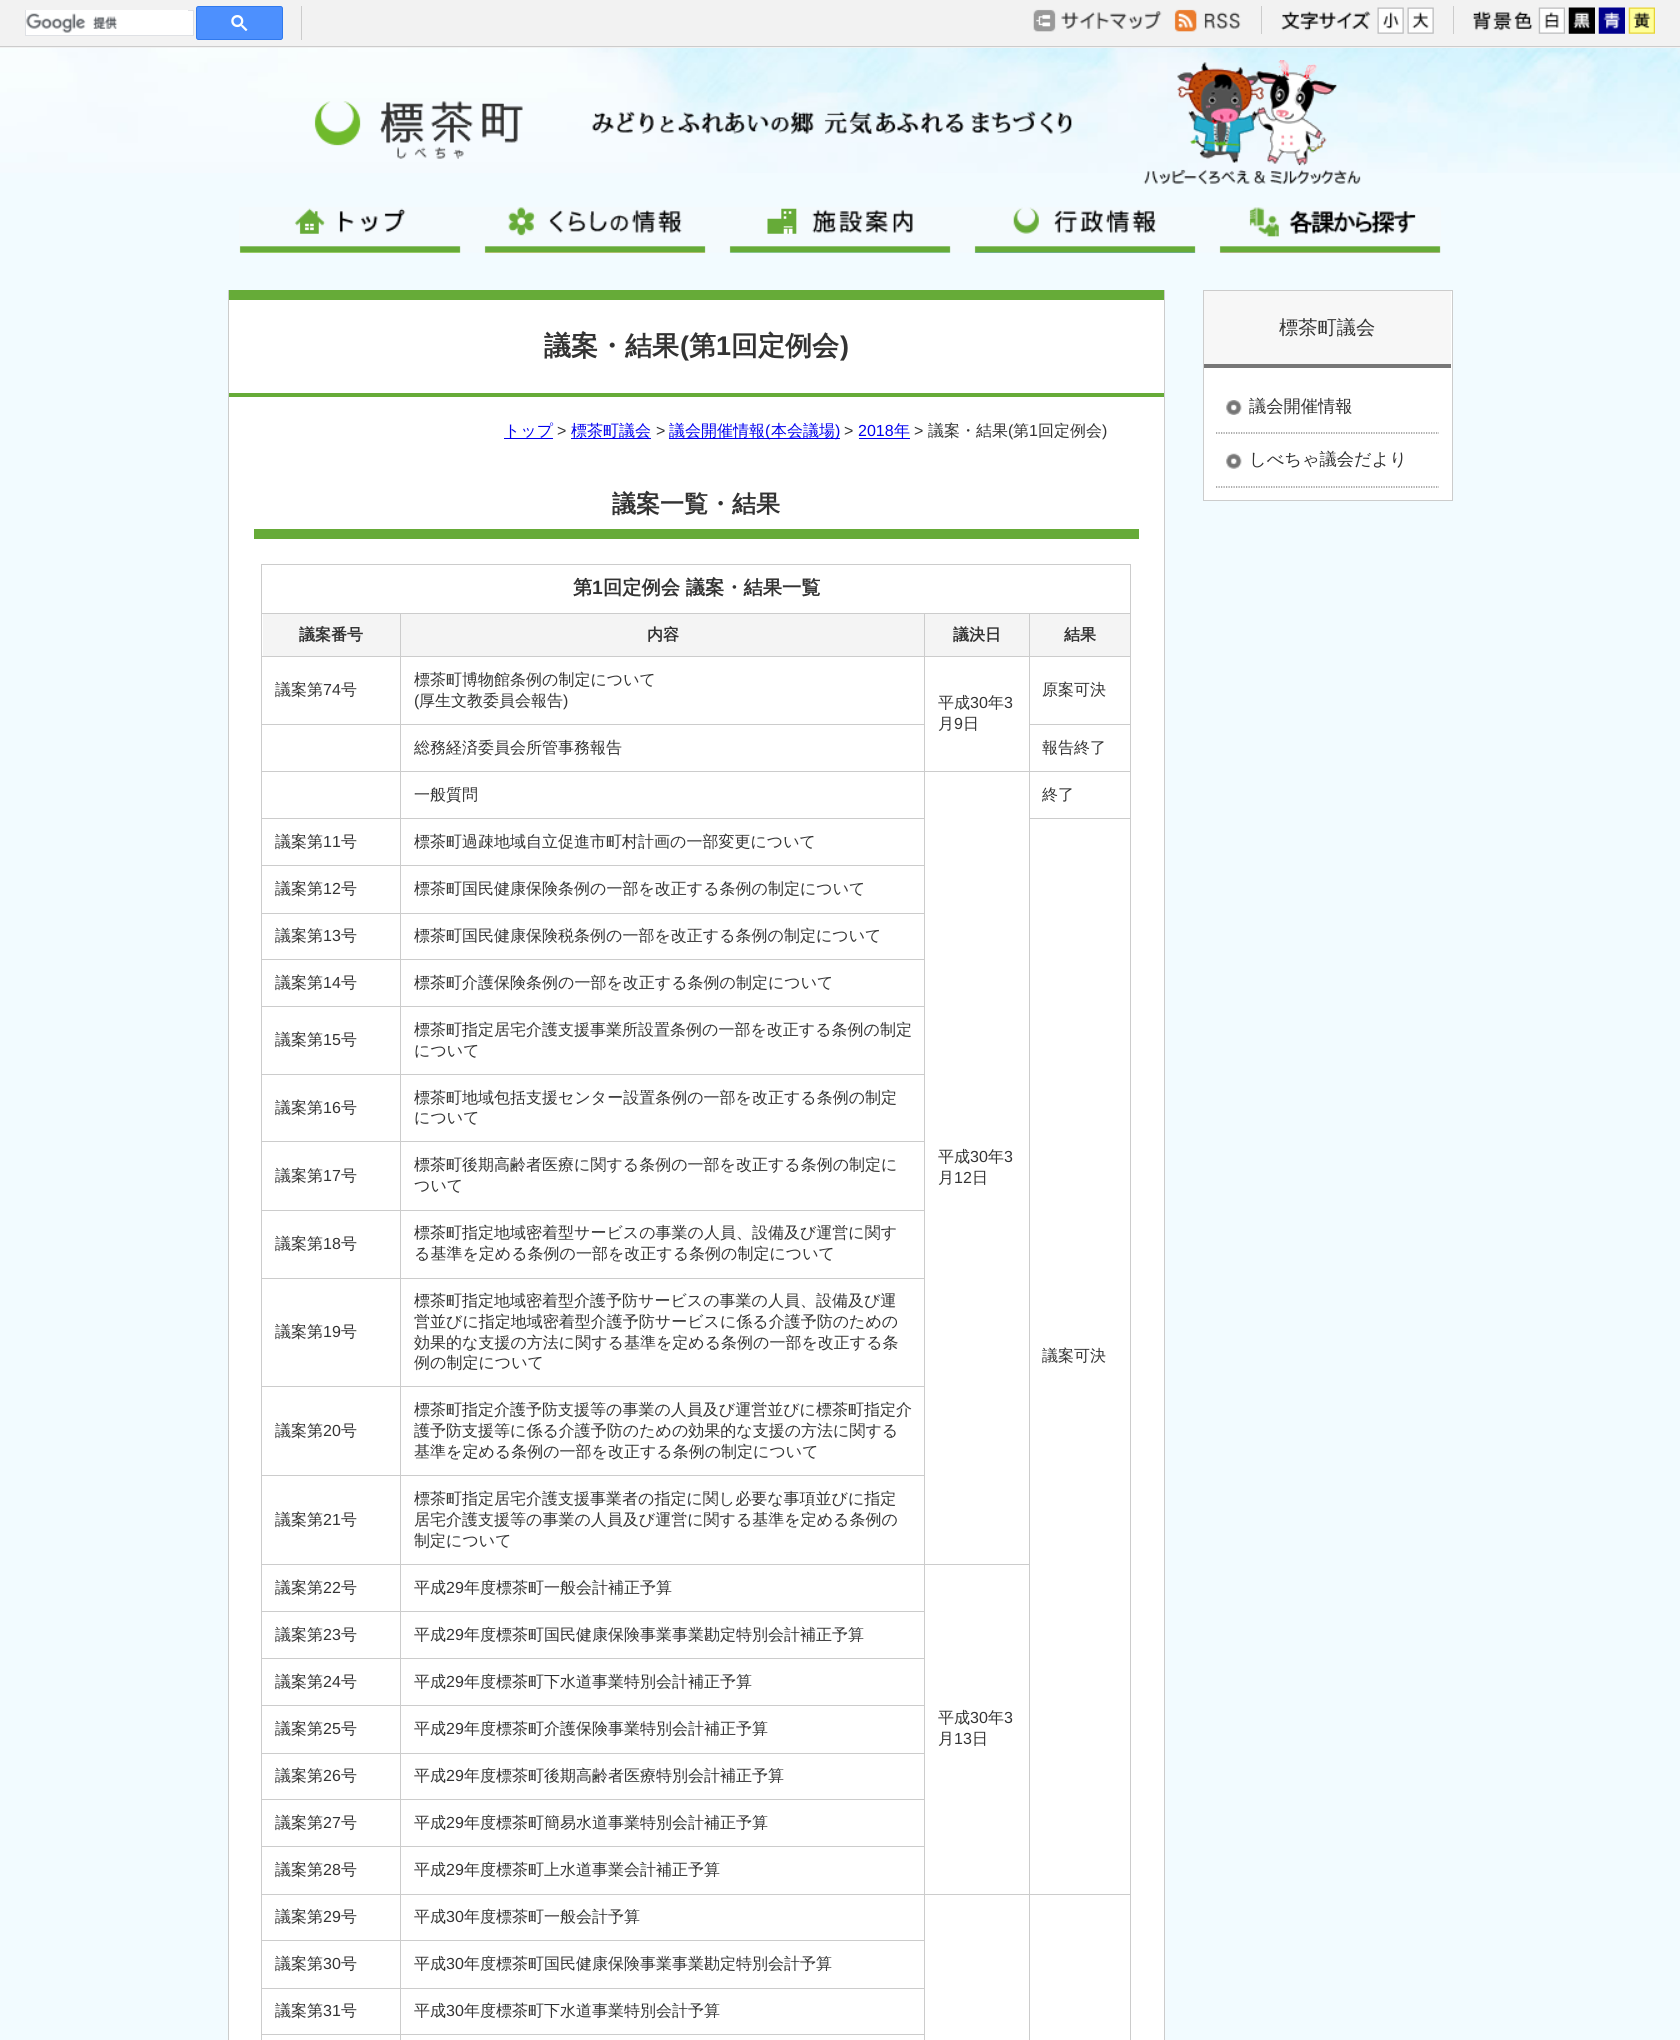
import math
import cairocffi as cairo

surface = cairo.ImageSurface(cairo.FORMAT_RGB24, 1680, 2040)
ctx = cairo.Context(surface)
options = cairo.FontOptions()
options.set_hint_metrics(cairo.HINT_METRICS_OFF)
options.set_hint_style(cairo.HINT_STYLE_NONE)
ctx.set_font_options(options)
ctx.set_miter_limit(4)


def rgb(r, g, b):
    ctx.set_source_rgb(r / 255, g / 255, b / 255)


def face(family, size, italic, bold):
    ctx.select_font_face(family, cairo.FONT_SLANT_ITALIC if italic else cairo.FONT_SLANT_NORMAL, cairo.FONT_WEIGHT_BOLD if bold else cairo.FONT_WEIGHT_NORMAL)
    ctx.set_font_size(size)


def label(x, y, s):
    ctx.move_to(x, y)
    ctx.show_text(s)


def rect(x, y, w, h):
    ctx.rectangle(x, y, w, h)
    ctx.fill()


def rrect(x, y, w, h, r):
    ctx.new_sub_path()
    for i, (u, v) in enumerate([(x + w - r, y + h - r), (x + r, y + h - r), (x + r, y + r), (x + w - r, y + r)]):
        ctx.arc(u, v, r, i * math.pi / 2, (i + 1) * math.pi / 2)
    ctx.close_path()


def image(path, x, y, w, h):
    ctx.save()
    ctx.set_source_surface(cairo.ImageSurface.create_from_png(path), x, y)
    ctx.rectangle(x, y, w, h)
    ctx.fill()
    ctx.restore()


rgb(242, 251, 255)
ctx.paint()
image('image0.png', 0, 48, 1680, 125)
rgb(242, 242, 242)
rect(0, 0, 1680, 48)
rgb(204, 204, 204)
rect(0, 46, 1680, 1)
rect(301, 6, 1, 34)
rgb(255, 255, 255)
rect(188, 11, 5, 24)
ctx.rectangle(25.5, 10.5, 168, 25)
rgb(223, 225, 229)
ctx.set_line_width(1)
ctx.stroke()
rgb(255, 255, 255)
rect(26, 10, 162, 25)
image('image1.png', 26, 13, 92, 20)
rgb(77, 144, 254)
rrect(196.5, 6.5, 86, 33, 2)
ctx.fill_preserve()
rgb(48, 121, 237)
ctx.stroke()
image('image2.png', 231, 15, 17, 16)
image('image3.png', 1033, 9, 129, 23)
image('image4.png', 1174, 9, 67, 23)
rgb(204, 204, 204)
rect(1261, 6, 1, 28)
image('image5.png', 1281, 11, 90, 20)
image('image6.png', 1377, 7, 27, 27)
image('image7.png', 1407, 7, 27, 27)
rect(1453, 6, 1, 28)
image('image8.png', 1472, 11, 61, 20)
image('image9.png', 1538, 7, 27, 27)
image('image10.png', 1568, 7, 27, 27)
image('image11.png', 1598, 7, 27, 27)
image('image12.png', 1628, 7, 27, 27)
image('image13.png', 314, 101, 209, 58)
image('image14.png', 592, 111, 480, 23)
image('image15.png', 1143, 60, 218, 125)
image('image16.png', 239, 207, 1202, 46)
image('image17.png', 240, 208, 221, 45)
image('image18.png', 484, 207, 222, 46)
image('image19.png', 729, 208, 222, 45)
image('image20.png', 974, 207, 222, 46)
image('image21.png', 1219, 207, 222, 46)
rgb(255, 255, 255)
rect(229, 300, 935, 1740)
rgb(204, 204, 204)
rect(1164, 290, 1, 1750)
rect(228, 290, 1, 1750)
rgb(102, 171, 56)
rect(229, 290, 935, 10)
rect(229, 393, 935, 4)
face('WenQuanYi Zen Hei', 27, 0, 1)
rgb(51, 51, 51)
label(544, 355, '議案・結果')
face('Liberation Sans', 27, 0, 1)
label(680, 355, '(')
face('WenQuanYi Zen Hei', 27, 0, 1)
label(689, 355, '第')
face('Liberation Sans', 27, 0, 1)
label(716, 355, '1')
face('WenQuanYi Zen Hei', 27, 0, 1)
label(731, 355, '回定例会')
face('Liberation Sans', 27, 0, 1)
label(840, 355, ')')
face('WenQuanYi Zen Hei Medium', 16, 0, 0)
rgb(0, 0, 238)
label(504, 436, 'トップ')
rect(504, 438, 49, 1)
face('Liberation Sans', 16, 0, 0)
rgb(51, 51, 51)
label(557, 436, '>')
rgb(0, 0, 238)
rect(571, 438, 80, 1)
face('WenQuanYi Zen Hei Medium', 16, 0, 0)
label(571, 436, '標茶町議会')
face('Liberation Sans', 16, 0, 0)
rgb(51, 51, 51)
label(656, 436, '>')
rgb(0, 0, 238)
rect(669, 438, 171, 1)
face('WenQuanYi Zen Hei Medium', 16, 0, 0)
label(669, 436, '議会開催情報')
face('Liberation Sans', 16, 0, 0)
label(765, 436, '(')
face('WenQuanYi Zen Hei Medium', 16, 0, 0)
label(771, 436, '本会議場')
face('Liberation Sans', 16, 0, 0)
label(835, 436, ')')
rgb(51, 51, 51)
label(844, 436, '>')
rgb(0, 0, 238)
label(858, 436, '2018')
rect(859, 438, 51, 1)
face('WenQuanYi Zen Hei Medium', 16, 0, 0)
label(894, 436, '年')
face('Liberation Sans', 16, 0, 0)
rgb(51, 51, 51)
label(914, 436, '>')
face('WenQuanYi Zen Hei Medium', 16, 0, 0)
label(928, 436, '議案・結果')
face('Liberation Sans', 16, 0, 0)
label(1008, 436, '(')
face('WenQuanYi Zen Hei Medium', 16, 0, 0)
label(1013, 436, '第')
face('Liberation Sans', 16, 0, 0)
label(1029, 436, '1')
face('WenQuanYi Zen Hei Medium', 16, 0, 0)
label(1038, 436, '回定例会')
face('Liberation Sans', 16, 0, 0)
label(1102, 436, ')')
rgb(102, 171, 56)
rect(254, 529, 885, 10)
face('WenQuanYi Zen Hei', 24, 0, 1)
rgb(51, 51, 51)
label(612, 512, '議案一覧・結果')
rgb(204, 204, 204)
rect(261, 564, 870, 1)
rect(1130, 564, 1, 1476)
rect(261, 564, 1, 1476)
face('WenQuanYi Zen Hei', 19.25, 0, 1)
rgb(51, 51, 51)
label(573, 594, '第')
face('Liberation Sans', 19.25, 0, 1)
label(592, 594, '1')
face('WenQuanYi Zen Hei', 19.25, 0, 1)
label(603, 594, '回定例会 議案・結果一覧')
rgb(244, 244, 244)
rect(263, 614, 137, 42)
rgb(204, 204, 204)
rect(1029, 613, 102, 1)
rect(1029, 656, 102, 1)
rect(1029, 724, 102, 1)
rect(1029, 771, 102, 1)
rect(1029, 818, 102, 1)
rect(924, 1564, 106, 1)
rect(1029, 1894, 102, 1)
rect(1029, 1894, 1, 146)
rect(924, 1894, 106, 1)
rect(1029, 818, 1, 1077)
rect(1029, 771, 1, 48)
rect(924, 771, 106, 1)
rect(1029, 724, 1, 49)
rect(1029, 656, 1, 69)
rect(924, 656, 106, 1)
rect(1029, 613, 1, 45)
rect(924, 613, 106, 1)
rect(400, 724, 525, 1)
rect(400, 818, 525, 1)
rect(400, 865, 525, 1)
rect(400, 913, 525, 1)
rect(400, 959, 525, 1)
rect(400, 1006, 525, 1)
rect(400, 1074, 525, 1)
rect(400, 1141, 525, 1)
rect(400, 1210, 525, 1)
rect(400, 1278, 525, 1)
rect(400, 1386, 525, 1)
rect(400, 1475, 525, 1)
rect(400, 1611, 525, 1)
rect(400, 1658, 525, 1)
rect(400, 1705, 525, 1)
rect(400, 1753, 525, 1)
rect(400, 1799, 525, 1)
rect(400, 1846, 525, 1)
rect(400, 1940, 525, 1)
rect(400, 1988, 525, 1)
rect(400, 2034, 525, 1)
rect(924, 1894, 1, 146)
rect(400, 1894, 525, 1)
rect(924, 1564, 1, 331)
rect(400, 1564, 525, 1)
rect(924, 771, 1, 794)
rect(400, 771, 525, 1)
rect(924, 656, 1, 117)
rect(400, 656, 525, 1)
rect(924, 613, 1, 45)
rect(400, 613, 525, 1)
rect(400, 2034, 1, 6)
rect(261, 2034, 140, 1)
rect(400, 1988, 1, 47)
rect(261, 1988, 140, 1)
rect(400, 1940, 1, 49)
rect(261, 1940, 140, 1)
rect(400, 1894, 1, 47)
rect(261, 1894, 140, 1)
rect(400, 1846, 1, 49)
rect(261, 1846, 140, 1)
rect(400, 1799, 1, 49)
rect(261, 1799, 140, 1)
rect(400, 1753, 1, 47)
rect(261, 1753, 140, 1)
rect(400, 1705, 1, 49)
rect(261, 1705, 140, 1)
rect(400, 1658, 1, 48)
rect(261, 1658, 140, 1)
rect(400, 1611, 1, 48)
rect(261, 1611, 140, 1)
rect(400, 1564, 1, 49)
rect(261, 1564, 140, 1)
rect(400, 1475, 1, 90)
rect(261, 1475, 140, 1)
rect(400, 1386, 1, 90)
rect(261, 1386, 140, 1)
rect(400, 1278, 1, 110)
rect(261, 1278, 140, 1)
rect(400, 1210, 1, 69)
rect(261, 1210, 140, 1)
rect(400, 1141, 1, 70)
rect(261, 1141, 140, 1)
rect(400, 1074, 1, 69)
rect(261, 1074, 140, 1)
rect(400, 1006, 1, 69)
rect(261, 1006, 140, 1)
rect(400, 959, 1, 49)
rect(261, 959, 140, 1)
rect(400, 913, 1, 47)
rect(261, 913, 140, 1)
rect(400, 865, 1, 49)
rect(261, 865, 140, 1)
rect(400, 818, 1, 48)
rect(261, 818, 140, 1)
rect(400, 771, 1, 48)
rect(261, 771, 140, 1)
rect(400, 724, 1, 49)
rect(261, 724, 140, 1)
rect(400, 656, 1, 69)
rect(261, 656, 140, 1)
rect(400, 613, 1, 45)
rect(261, 613, 140, 1)
face('WenQuanYi Zen Hei', 16, 0, 1)
rgb(51, 51, 51)
label(299, 640, '議案番号')
rgb(244, 244, 244)
rect(401, 614, 523, 42)
rgb(51, 51, 51)
label(647, 640, '内容')
rgb(244, 244, 244)
rect(925, 614, 104, 42)
rgb(51, 51, 51)
label(953, 640, '議決日')
rgb(244, 244, 244)
rect(1030, 614, 100, 42)
rgb(51, 51, 51)
label(1064, 640, '結果')
face('WenQuanYi Zen Hei Medium', 16, 0, 0)
label(275, 695, '議案第')
face('Liberation Sans', 16, 0, 0)
label(323, 695, '74')
face('WenQuanYi Zen Hei Medium', 16, 0, 0)
label(341, 695, '号')
label(414, 685, '標茶町博物館条例の制定について')
face('Liberation Sans', 16, 0, 0)
label(414, 706, '(')
face('WenQuanYi Zen Hei Medium', 16, 0, 0)
label(419, 706, '厚生文教委員会報告')
face('Liberation Sans', 16, 0, 0)
label(563, 706, ')')
face('WenQuanYi Zen Hei Medium', 16, 0, 0)
label(1042, 695, '原案可決')
label(938, 708, '平成')
face('Liberation Sans', 16, 0, 0)
label(970, 708, '30')
face('WenQuanYi Zen Hei Medium', 16, 0, 0)
label(988, 708, '年')
face('Liberation Sans', 16, 0, 0)
label(1004, 708, '3')
face('WenQuanYi Zen Hei Medium', 16, 0, 0)
label(938, 729, '月')
face('Liberation Sans', 16, 0, 0)
label(954, 729, '9')
face('WenQuanYi Zen Hei Medium', 16, 0, 0)
label(963, 729, '日')
label(414, 753, '総務経済委員会所管事務報告')
label(1042, 753, '報告終了')
label(414, 800, '一般質問')
label(1042, 800, '終了')
label(938, 1162, '平成')
face('Liberation Sans', 16, 0, 0)
label(970, 1162, '30')
face('WenQuanYi Zen Hei Medium', 16, 0, 0)
label(988, 1162, '年')
face('Liberation Sans', 16, 0, 0)
label(1004, 1162, '3')
face('WenQuanYi Zen Hei Medium', 16, 0, 0)
label(938, 1183, '月')
face('Liberation Sans', 16, 0, 0)
label(954, 1183, '12')
face('WenQuanYi Zen Hei Medium', 16, 0, 0)
label(972, 1183, '日')
label(275, 847, '議案第')
face('Liberation Sans', 16, 0, 0)
label(323, 847, '11')
face('WenQuanYi Zen Hei Medium', 16, 0, 0)
label(341, 847, '号')
label(414, 847, '標茶町過疎地域自立促進市町村計画の一部変更について')
label(1042, 1361, '議案可決')
label(275, 894, '議案第')
face('Liberation Sans', 16, 0, 0)
label(323, 894, '12')
face('WenQuanYi Zen Hei Medium', 16, 0, 0)
label(341, 894, '号')
label(414, 894, '標茶町国民健康保険条例の一部を改正する条例の制定について')
label(275, 941, '議案第')
face('Liberation Sans', 16, 0, 0)
label(323, 941, '13')
face('WenQuanYi Zen Hei Medium', 16, 0, 0)
label(341, 941, '号')
label(414, 941, '標茶町国民健康保険税条例の一部を改正する条例の制定について')
label(275, 988, '議案第')
face('Liberation Sans', 16, 0, 0)
label(323, 988, '14')
face('WenQuanYi Zen Hei Medium', 16, 0, 0)
label(341, 988, '号')
label(414, 988, '標茶町介護保険条例の一部を改正する条例の制定について')
label(275, 1045, '議案第')
face('Liberation Sans', 16, 0, 0)
label(323, 1045, '15')
face('WenQuanYi Zen Hei Medium', 16, 0, 0)
label(341, 1045, '号')
label(414, 1035, '標茶町指定居宅介護支援事業所設置条例の一部を改正する条例の制定')
label(414, 1056, 'について')
label(275, 1113, '議案第')
face('Liberation Sans', 16, 0, 0)
label(323, 1113, '16')
face('WenQuanYi Zen Hei Medium', 16, 0, 0)
label(341, 1113, '号')
label(414, 1103, '標茶町地域包括支援センター設置条例の一部を改正する条例の制定')
label(414, 1123, 'について')
label(275, 1181, '議案第')
face('Liberation Sans', 16, 0, 0)
label(323, 1181, '17')
face('WenQuanYi Zen Hei Medium', 16, 0, 0)
label(341, 1181, '号')
label(414, 1170, '標茶町後期高齢者医療に関する条例の一部を改正する条例の制定に')
label(414, 1191, 'ついて')
label(275, 1249, '議案第')
face('Liberation Sans', 16, 0, 0)
label(323, 1249, '18')
face('WenQuanYi Zen Hei Medium', 16, 0, 0)
label(341, 1249, '号')
label(414, 1238, '標茶町指定地域密着型サービスの事業の人員、設備及び運営に関す')
label(414, 1259, 'る基準を定める条例の一部を改正する条例の制定について')
label(275, 1337, '議案第')
face('Liberation Sans', 16, 0, 0)
label(323, 1337, '19')
face('WenQuanYi Zen Hei Medium', 16, 0, 0)
label(341, 1337, '号')
label(414, 1306, '標茶町指定地域密着型介護予防サービスの事業の人員、設備及び運')
label(414, 1327, '営並びに指定地域密着型介護予防サービスに係る介護予防のための')
label(414, 1348, '効果的な支援の方法に関する基準を定める条例の一部を改正する条')
label(414, 1368, '例の制定について')
label(275, 1436, '議案第')
face('Liberation Sans', 16, 0, 0)
label(323, 1436, '20')
face('WenQuanYi Zen Hei Medium', 16, 0, 0)
label(341, 1436, '号')
label(414, 1415, '標茶町指定介護予防支援等の事業の人員及び運営並びに標茶町指定介')
label(414, 1436, '護予防支援等に係る介護予防のための効果的な支援の方法に関する')
label(414, 1457, '基準を定める条例の一部を改正する条例の制定について')
label(275, 1525, '議案第')
face('Liberation Sans', 16, 0, 0)
label(323, 1525, '21')
face('WenQuanYi Zen Hei Medium', 16, 0, 0)
label(341, 1525, '号')
label(414, 1504, '標茶町指定居宅介護支援事業者の指定に関し必要な事項並びに指定')
label(414, 1525, '居宅介護支援等の事業の人員及び運営に関する基準を定める条例の')
label(414, 1546, '制定について')
label(275, 1593, '議案第')
face('Liberation Sans', 16, 0, 0)
label(323, 1593, '22')
face('WenQuanYi Zen Hei Medium', 16, 0, 0)
label(341, 1593, '号')
label(414, 1593, '平成')
face('Liberation Sans', 16, 0, 0)
label(446, 1593, '29')
face('WenQuanYi Zen Hei Medium', 16, 0, 0)
label(464, 1593, '年度標茶町一般会計補正予算')
label(938, 1723, '平成')
face('Liberation Sans', 16, 0, 0)
label(970, 1723, '30')
face('WenQuanYi Zen Hei Medium', 16, 0, 0)
label(988, 1723, '年')
face('Liberation Sans', 16, 0, 0)
label(1004, 1723, '3')
face('WenQuanYi Zen Hei Medium', 16, 0, 0)
label(938, 1744, '月')
face('Liberation Sans', 16, 0, 0)
label(954, 1744, '13')
face('WenQuanYi Zen Hei Medium', 16, 0, 0)
label(972, 1744, '日')
label(275, 1640, '議案第')
face('Liberation Sans', 16, 0, 0)
label(323, 1640, '23')
face('WenQuanYi Zen Hei Medium', 16, 0, 0)
label(341, 1640, '号')
label(414, 1640, '平成')
face('Liberation Sans', 16, 0, 0)
label(446, 1640, '29')
face('WenQuanYi Zen Hei Medium', 16, 0, 0)
label(464, 1640, '年度標茶町国民健康保険事業事業勘定特別会計補正予算')
label(275, 1687, '議案第')
face('Liberation Sans', 16, 0, 0)
label(323, 1687, '24')
face('WenQuanYi Zen Hei Medium', 16, 0, 0)
label(341, 1687, '号')
label(414, 1687, '平成')
face('Liberation Sans', 16, 0, 0)
label(446, 1687, '29')
face('WenQuanYi Zen Hei Medium', 16, 0, 0)
label(464, 1687, '年度標茶町下水道事業特別会計補正予算')
label(275, 1734, '議案第')
face('Liberation Sans', 16, 0, 0)
label(323, 1734, '25')
face('WenQuanYi Zen Hei Medium', 16, 0, 0)
label(341, 1734, '号')
label(414, 1734, '平成')
face('Liberation Sans', 16, 0, 0)
label(446, 1734, '29')
face('WenQuanYi Zen Hei Medium', 16, 0, 0)
label(464, 1734, '年度標茶町介護保険事業特別会計補正予算')
label(275, 1781, '議案第')
face('Liberation Sans', 16, 0, 0)
label(323, 1781, '26')
face('WenQuanYi Zen Hei Medium', 16, 0, 0)
label(341, 1781, '号')
label(414, 1781, '平成')
face('Liberation Sans', 16, 0, 0)
label(446, 1781, '29')
face('WenQuanYi Zen Hei Medium', 16, 0, 0)
label(464, 1781, '年度標茶町後期高齢者医療特別会計補正予算')
label(275, 1828, '議案第')
face('Liberation Sans', 16, 0, 0)
label(323, 1828, '27')
face('WenQuanYi Zen Hei Medium', 16, 0, 0)
label(341, 1828, '号')
label(414, 1828, '平成')
face('Liberation Sans', 16, 0, 0)
label(446, 1828, '29')
face('WenQuanYi Zen Hei Medium', 16, 0, 0)
label(464, 1828, '年度標茶町簡易水道事業特別会計補正予算')
label(275, 1875, '議案第')
face('Liberation Sans', 16, 0, 0)
label(323, 1875, '28')
face('WenQuanYi Zen Hei Medium', 16, 0, 0)
label(341, 1875, '号')
label(414, 1875, '平成')
face('Liberation Sans', 16, 0, 0)
label(446, 1875, '29')
face('WenQuanYi Zen Hei Medium', 16, 0, 0)
label(464, 1875, '年度標茶町上水道事業会計補正予算')
label(275, 1922, '議案第')
face('Liberation Sans', 16, 0, 0)
label(323, 1922, '29')
face('WenQuanYi Zen Hei Medium', 16, 0, 0)
label(341, 1922, '号')
label(414, 1922, '平成')
face('Liberation Sans', 16, 0, 0)
label(446, 1922, '30')
face('WenQuanYi Zen Hei Medium', 16, 0, 0)
label(464, 1922, '年度標茶町一般会計予算')
label(275, 1969, '議案第')
face('Liberation Sans', 16, 0, 0)
label(323, 1969, '30')
face('WenQuanYi Zen Hei Medium', 16, 0, 0)
label(341, 1969, '号')
label(414, 1969, '平成')
face('Liberation Sans', 16, 0, 0)
label(446, 1969, '30')
face('WenQuanYi Zen Hei Medium', 16, 0, 0)
label(464, 1969, '年度標茶町国民健康保険事業事業勘定特別会計予算')
label(275, 2016, '議案第')
face('Liberation Sans', 16, 0, 0)
label(323, 2016, '31')
face('WenQuanYi Zen Hei Medium', 16, 0, 0)
label(341, 2016, '号')
label(414, 2016, '平成')
face('Liberation Sans', 16, 0, 0)
label(446, 2016, '30')
face('WenQuanYi Zen Hei Medium', 16, 0, 0)
label(464, 2016, '年度標茶町下水道事業特別会計予算')
rgb(255, 255, 255)
ctx.rectangle(1203.5, 290.5, 249, 210)
ctx.fill_preserve()
rgb(204, 204, 204)
ctx.stroke()
rgb(247, 247, 247)
rect(1204, 291, 247, 73)
rgb(119, 119, 119)
rect(1204, 364, 247, 4)
face('WenQuanYi Zen Hei Medium', 19.25, 0, 0)
rgb(51, 51, 51)
label(1279, 334, '標茶町議会')
image('image22.png', 1226, 400, 16, 15)
ctx.new_path()
ctx.move_to(1216, 433)
ctx.line_to(1439, 433)
rgb(119, 119, 119)
ctx.set_line_width(1.2)
ctx.set_dash([1.25, 1.25])
ctx.stroke()
face('WenQuanYi Zen Hei Medium', 17.25, 0, 0)
rgb(51, 51, 51)
label(1249, 412, '議会開催情報')
image('image23.png', 1226, 453, 16, 16)
ctx.new_path()
ctx.move_to(1216, 487)
ctx.line_to(1439, 487)
rgb(119, 119, 119)
ctx.stroke()
rgb(51, 51, 51)
label(1249, 465, 'しべちゃ議会だより')
surface.write_to_png('render.png')
